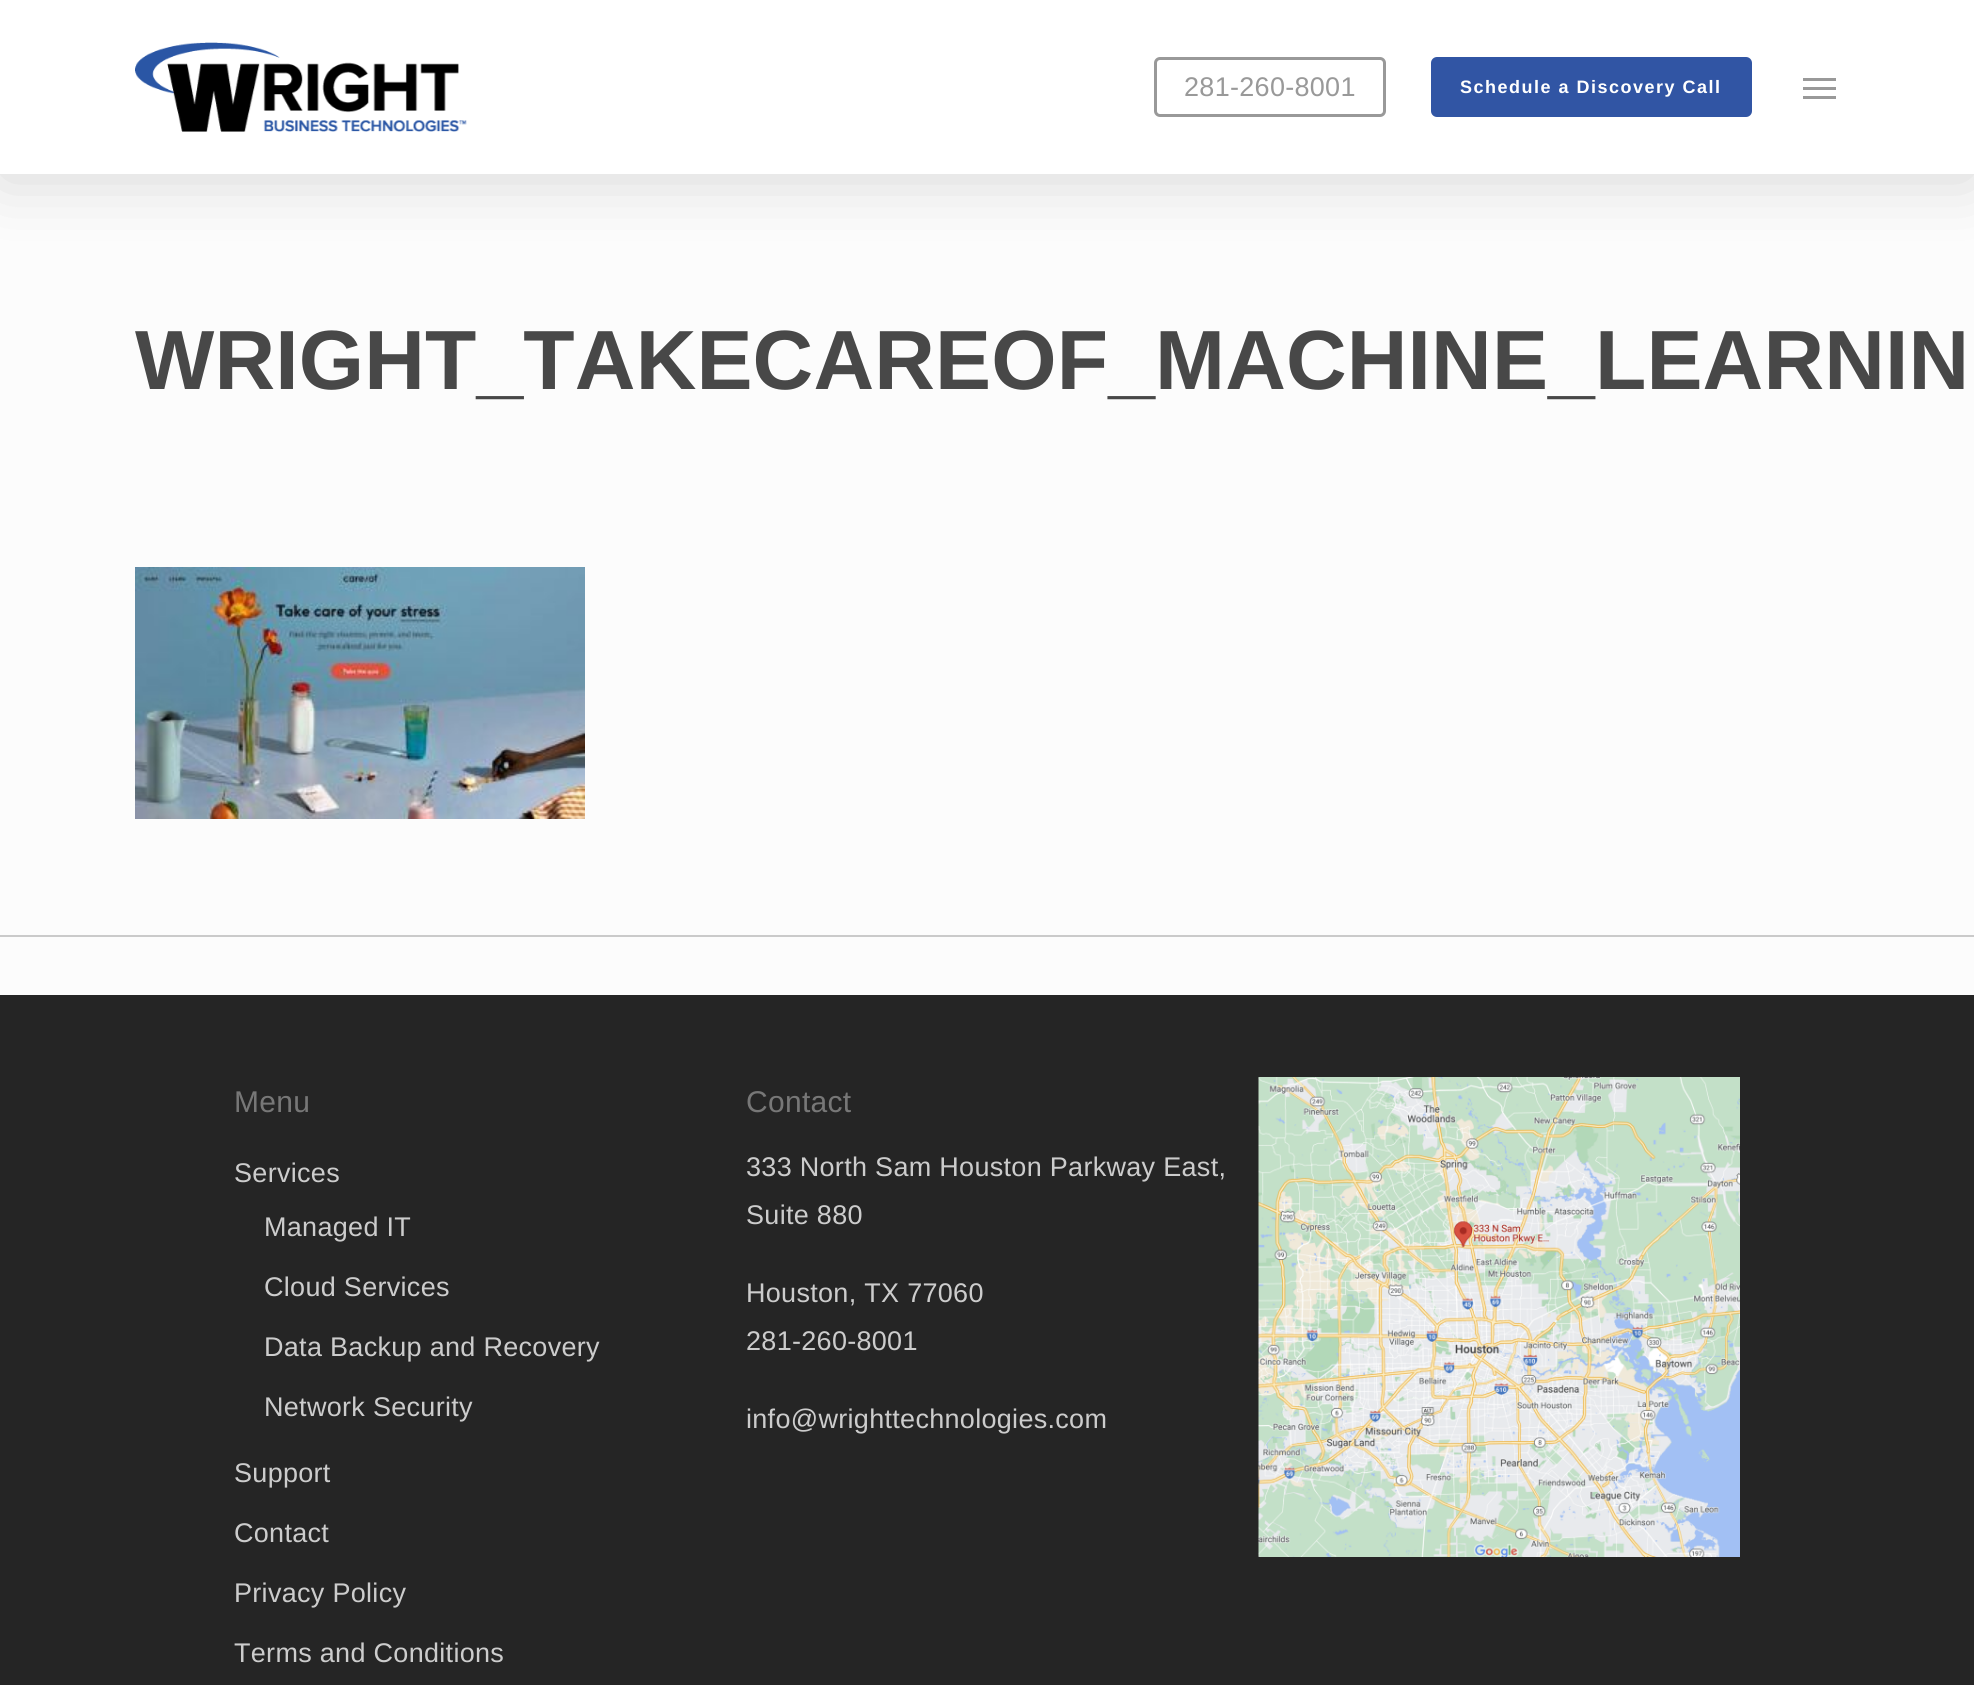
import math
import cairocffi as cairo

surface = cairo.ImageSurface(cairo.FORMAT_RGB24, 1974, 1685)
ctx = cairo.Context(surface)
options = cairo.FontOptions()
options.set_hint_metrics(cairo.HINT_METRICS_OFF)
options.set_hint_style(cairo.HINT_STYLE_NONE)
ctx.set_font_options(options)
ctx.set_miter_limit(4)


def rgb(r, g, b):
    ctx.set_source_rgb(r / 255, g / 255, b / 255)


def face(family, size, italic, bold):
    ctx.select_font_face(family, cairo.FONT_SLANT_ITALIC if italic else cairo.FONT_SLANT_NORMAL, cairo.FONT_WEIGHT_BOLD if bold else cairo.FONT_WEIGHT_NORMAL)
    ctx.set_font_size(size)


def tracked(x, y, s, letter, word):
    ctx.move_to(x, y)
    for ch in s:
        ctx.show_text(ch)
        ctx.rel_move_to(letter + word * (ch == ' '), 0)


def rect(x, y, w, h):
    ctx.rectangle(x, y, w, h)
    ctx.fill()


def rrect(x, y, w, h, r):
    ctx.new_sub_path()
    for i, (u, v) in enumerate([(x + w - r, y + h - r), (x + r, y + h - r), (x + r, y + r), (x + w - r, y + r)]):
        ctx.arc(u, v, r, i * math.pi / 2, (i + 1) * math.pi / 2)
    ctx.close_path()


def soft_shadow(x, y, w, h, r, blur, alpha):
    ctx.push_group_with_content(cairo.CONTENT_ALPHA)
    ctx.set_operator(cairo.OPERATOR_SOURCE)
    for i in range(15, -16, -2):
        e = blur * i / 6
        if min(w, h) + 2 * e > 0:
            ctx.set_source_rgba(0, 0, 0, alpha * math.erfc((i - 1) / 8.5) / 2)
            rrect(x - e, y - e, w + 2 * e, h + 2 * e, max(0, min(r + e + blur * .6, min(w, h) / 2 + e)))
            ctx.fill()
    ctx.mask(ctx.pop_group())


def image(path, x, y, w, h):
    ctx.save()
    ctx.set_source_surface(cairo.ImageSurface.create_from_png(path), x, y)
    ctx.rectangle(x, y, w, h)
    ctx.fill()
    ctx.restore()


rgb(252, 252, 252)
ctx.paint()
rgb(0, 0, 0)
soft_shadow(0, 5, 1974, 174, 0, 34, 0.15)
rgb(255, 255, 255)
rect(0, 0, 1974, 174)
image('image0.png', 135, 42, 332, 90)
rrect(1155.5, 58.5, 229, 57, 4.5)
rgb(153, 153, 153)
ctx.set_line_width(3)
ctx.stroke()
face('Liberation Sans', 27, 0, 0)
tracked(1184, 96, '281-260-8001', 0.3, 0)
rgb(49, 85, 164)
rrect(1431, 57, 321, 60, 6)
ctx.fill()
face('Liberation Sans', 18, 0, 1)
rgb(255, 255, 255)
tracked(1460, 93, 'Schedule a Discovery Call', 1.5, 0)
rgb(153, 153, 153)
rect(1803, 78, 33, 3)
rect(1803, 96, 33, 3)
rect(1803, 87, 33, 3)
face('Liberation Sans', 84, 0, 1)
rgb(72, 72, 72)
tracked(135, 389, 'WRIGHT_TAKECAREOF_MACHINE_LEARNIN', 0.15, 0)
image('image1.png', 135, 567, 450, 252)
rgb(202, 202, 202)
rect(0, 935, 1974, 2)
rgb(37, 37, 37)
rect(0, 995, 1974, 690)
face('Liberation Sans', 30, 0, 0)
rgb(119, 119, 119)
tracked(234, 1112, 'Menu', 0.3, 0)
face('Liberation Sans', 27, 0, 0)
rgb(204, 204, 204)
tracked(234, 1182, 'Services', 0.3, 0)
tracked(264, 1236, 'Managed IT', 0.3, 0)
tracked(264, 1296, 'Cloud Services', 0.3, 0)
tracked(264, 1356, 'Data Backup and Recovery', 0.3, 0)
tracked(264, 1416, 'Network Security', 0.3, 0)
tracked(234, 1482, 'Support', 0.3, 0)
tracked(234, 1542, 'Contact', 0.3, 0)
tracked(234, 1602, 'Privacy Policy', 0.3, 0)
tracked(234, 1662, 'Terms and Conditions', 0.3, 0)
face('Liberation Sans', 30, 0, 0)
rgb(119, 119, 119)
tracked(746, 1112, 'Contact', 0.3, 0)
face('Liberation Sans', 27, 0, 0)
rgb(204, 204, 204)
tracked(746, 1176, '333 North Sam Houston Parkway East,', 0.3, 0)
tracked(746, 1224, 'Suite 880', 0.3, 0)
tracked(746, 1302, 'Houston, TX 77060', 0.3, 0)
tracked(746, 1350, '281-260-8001', 0.3, 0)
tracked(746, 1428, 'info@wrighttechnologies.com', 0.3, 0)
image('image2.png', 1258, 1077, 482, 480)
surface.write_to_png('render.png')
